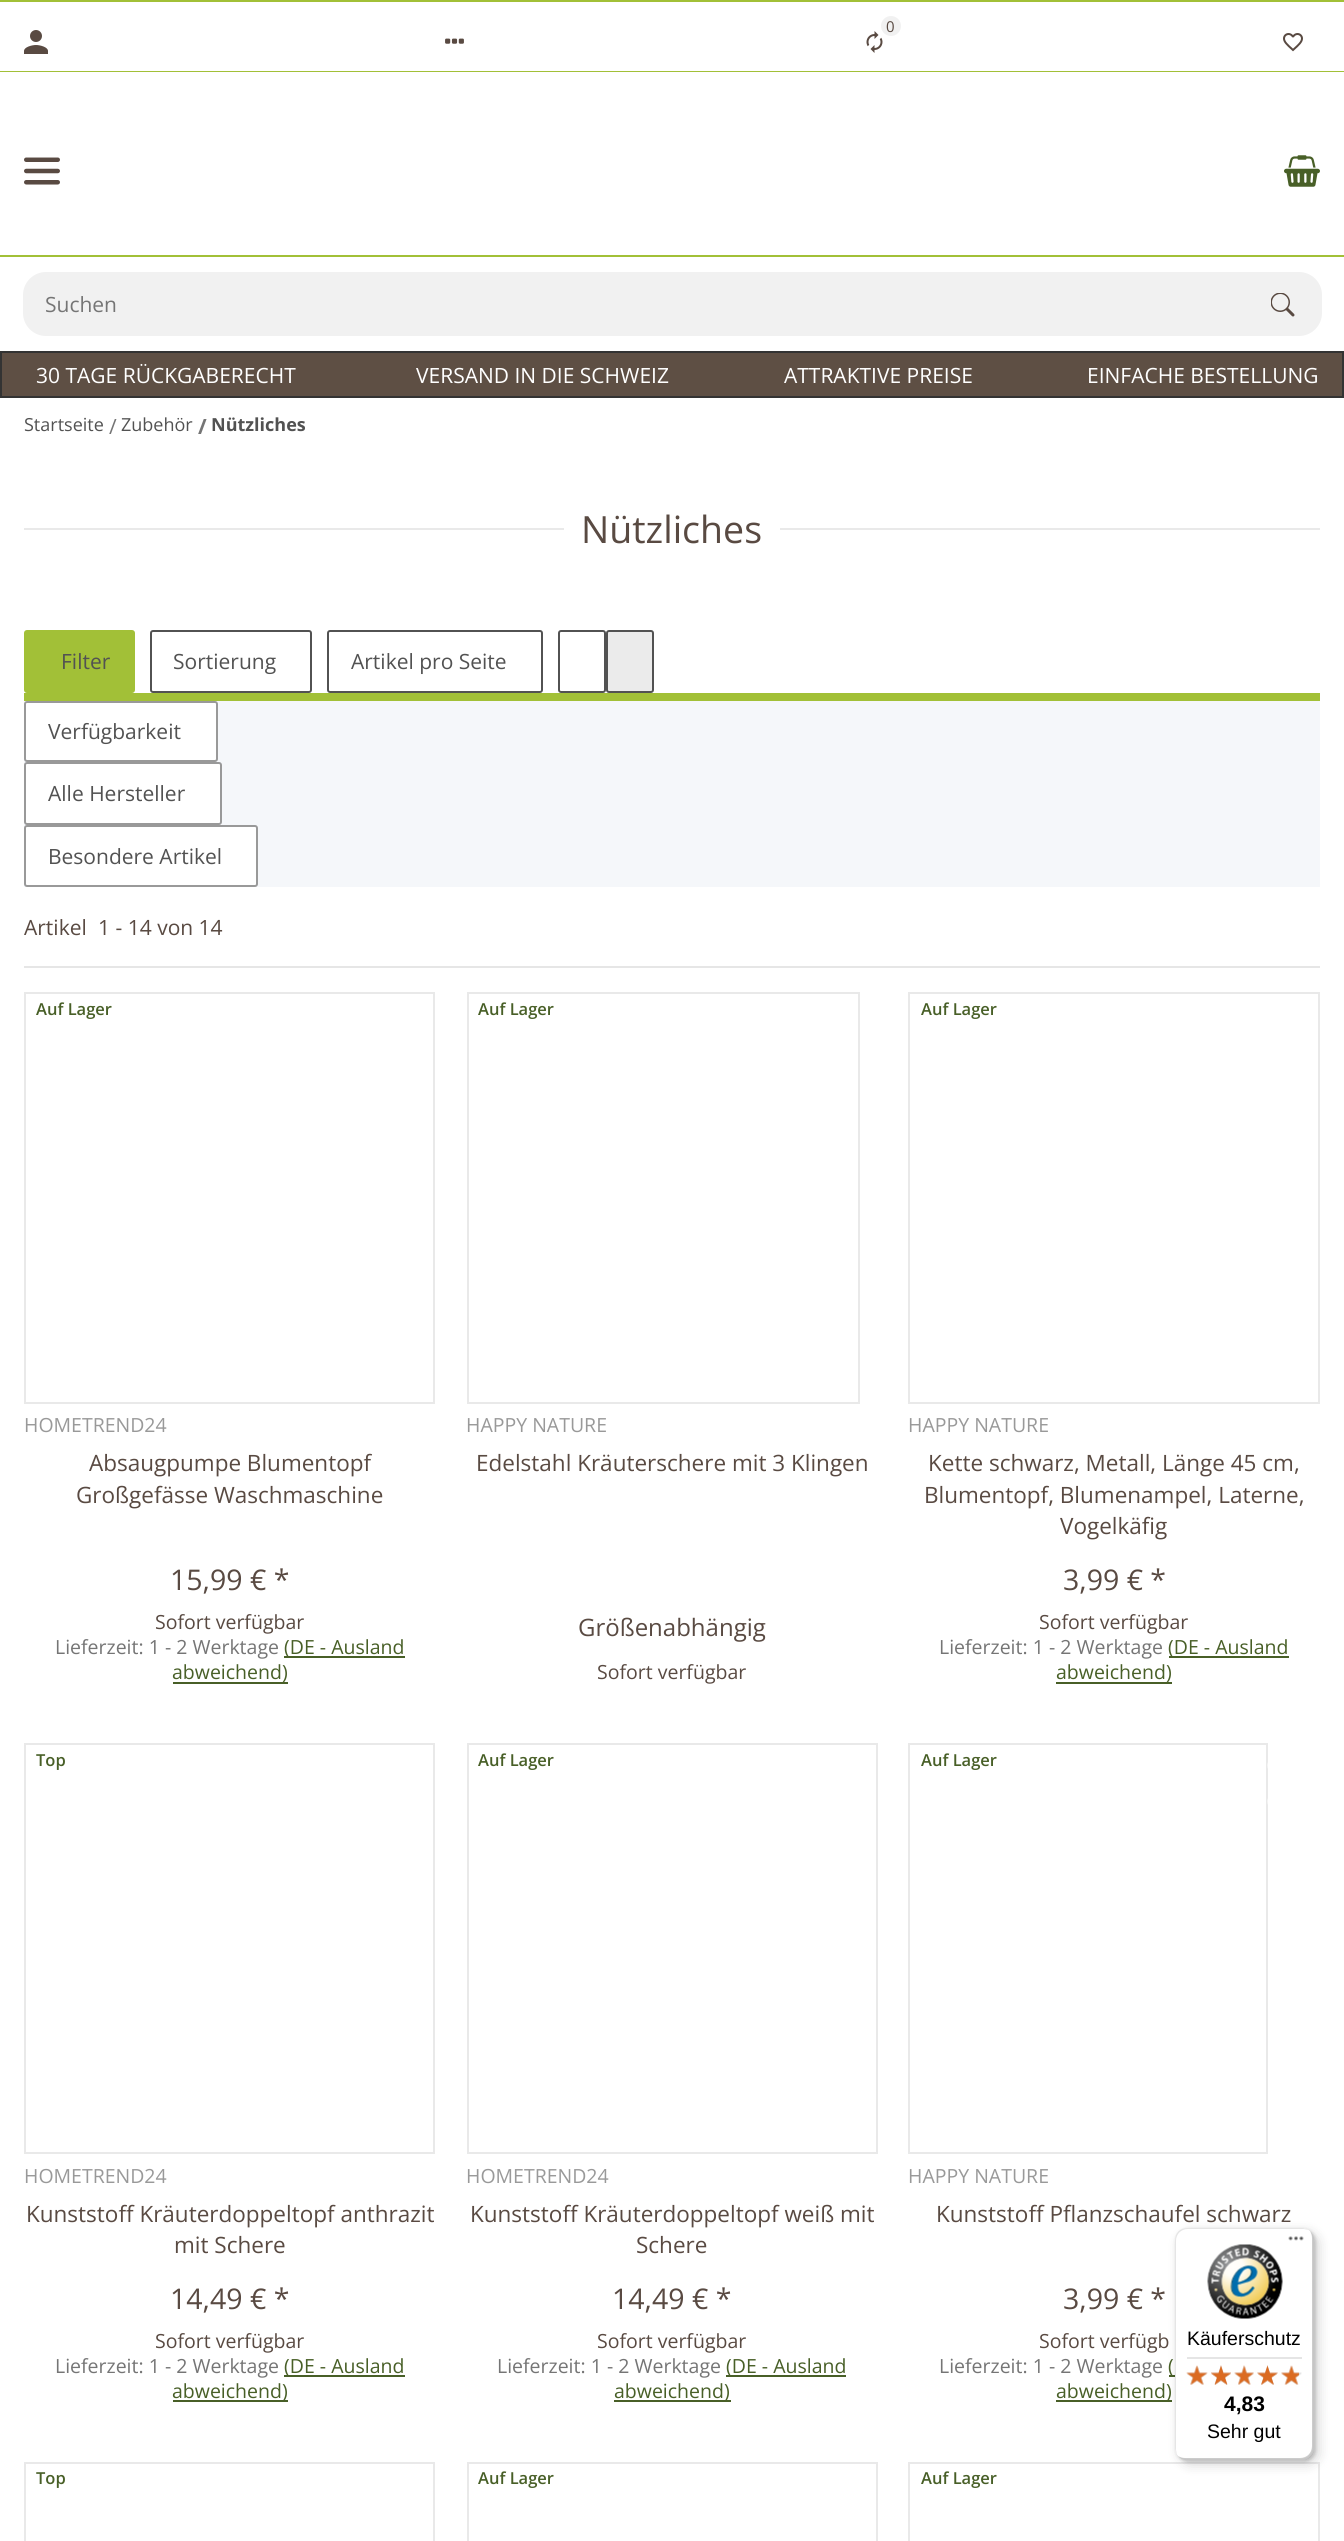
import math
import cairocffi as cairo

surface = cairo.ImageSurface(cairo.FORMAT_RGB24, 1344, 2541)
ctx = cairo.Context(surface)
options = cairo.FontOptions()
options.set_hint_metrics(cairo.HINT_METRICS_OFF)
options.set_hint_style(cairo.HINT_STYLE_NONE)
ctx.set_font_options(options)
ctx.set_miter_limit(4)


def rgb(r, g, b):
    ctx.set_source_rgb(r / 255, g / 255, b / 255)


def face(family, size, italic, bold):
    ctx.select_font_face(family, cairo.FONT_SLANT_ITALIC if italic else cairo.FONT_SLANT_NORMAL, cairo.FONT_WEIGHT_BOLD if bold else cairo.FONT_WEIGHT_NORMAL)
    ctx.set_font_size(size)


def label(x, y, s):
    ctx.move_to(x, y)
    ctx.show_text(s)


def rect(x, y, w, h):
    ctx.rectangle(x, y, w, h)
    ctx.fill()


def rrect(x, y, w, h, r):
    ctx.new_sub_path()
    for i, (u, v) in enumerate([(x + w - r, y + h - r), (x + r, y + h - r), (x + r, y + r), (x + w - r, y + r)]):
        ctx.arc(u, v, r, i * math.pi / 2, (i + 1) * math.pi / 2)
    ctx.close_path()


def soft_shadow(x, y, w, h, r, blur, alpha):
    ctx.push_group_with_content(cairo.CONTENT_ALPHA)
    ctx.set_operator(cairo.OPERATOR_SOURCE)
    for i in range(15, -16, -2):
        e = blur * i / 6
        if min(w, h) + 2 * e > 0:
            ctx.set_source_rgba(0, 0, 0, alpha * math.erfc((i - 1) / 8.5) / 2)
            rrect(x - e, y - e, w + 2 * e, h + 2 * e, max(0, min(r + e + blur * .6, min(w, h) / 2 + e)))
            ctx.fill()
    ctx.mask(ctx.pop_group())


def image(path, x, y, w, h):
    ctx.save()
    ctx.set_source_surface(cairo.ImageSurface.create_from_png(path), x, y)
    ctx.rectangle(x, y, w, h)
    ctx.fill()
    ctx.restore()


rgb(255, 255, 255)
ctx.paint()
rgb(162, 192, 55)
rect(0, 0, 1344, 2)
rect(0, 71, 1344, 1)
image('image0.png', 866, 31, 17, 22)
rgb(241, 241, 241)
ctx.arc(891, 26, 11, 0, 2 * math.pi)
ctx.fill_preserve()
rgb(255, 255, 255)
ctx.stroke()
face('Open Sans', 15, 0, 0)
rgb(89, 74, 66)
label(886, 32, '0')
image('image1.png', 24, 30, 24, 24)
image('image2.png', 445, 38, 19, 6)
image('image3.png', 1283, 33, 20, 19)
rgb(162, 192, 55)
rect(0, 255, 1344, 2)
image('image4.png', 24, 157, 36, 28)
image('image5.png', 1284, 155, 36, 32)
rgb(241, 241, 241)
rrect(23, 272, 1299, 64, 23)
ctx.fill()
face('Open Sans', 21, 0, 0)
rgb(117, 117, 117)
label(45, 312, 'Suchen')
image('image6.png', 1271, 293, 24, 24)
rgb(94, 79, 68)
ctx.rectangle(1, 352, 1342, 45)
ctx.fill_preserve()
rgb(51, 51, 51)
ctx.stroke()
rgb(255, 255, 255)
label(36, 383, '30 TAGE RÜCKGABERECHT')
label(416, 383, 'VERSAND IN DIE SCHWEIZ')
label(784, 383, 'ATTRAKTIVE PREISE')
label(1087, 383, 'EINFACHE BESTELLUNG')
face('Open Sans', 18, 0, 0)
rgb(82, 82, 82)
label(24, 431, 'Startseite')
face('Open Sans', 21, 0, 0)
rgb(117, 117, 117)
label(109, 434, '/')
face('Open Sans', 18, 0, 0)
rgb(82, 82, 82)
label(121, 431, 'Zubehör')
face('Open Sans', 21, 0, 1)
rgb(117, 117, 117)
label(198, 434, '/')
face('Open Sans', 18, 0, 1)
rgb(82, 82, 82)
label(211, 431, 'Nützliches')
rgb(233, 233, 233)
rect(24, 528, 1296, 2)
rgb(255, 255, 255)
rect(564, 528, 216, 2)
face('Open Sans', 37.5, 0, 0)
rgb(89, 74, 66)
label(581, 543, 'Nützliches')
rgb(162, 192, 55)
rrect(25, 631, 109, 61, 2)
ctx.fill_preserve()
ctx.stroke()
face('Open Sans', 21, 0, 0)
rgb(82, 82, 82)
label(61, 669, 'Filter')
rrect(151, 631, 160, 61, 2)
ctx.stroke()
label(173, 669, 'Sortierung')
rrect(328, 631, 214, 61, 2)
ctx.stroke()
label(351, 669, 'Artikel pro Seite')
rrect(559, 631, 46, 61, 2)
ctx.stroke()
rgb(235, 235, 235)
rrect(607, 631, 46, 61, 2)
ctx.fill_preserve()
rgb(82, 82, 82)
ctx.stroke()
rgb(245, 247, 250)
rect(24, 701, 1296, 186)
rgb(162, 192, 55)
rect(24, 693, 1296, 8)
rgb(255, 255, 255)
rrect(25, 702, 192, 59, 2)
ctx.fill_preserve()
rgb(153, 153, 153)
ctx.stroke()
rgb(82, 82, 82)
label(48, 739, 'Verfügbarkeit')
rgb(255, 255, 255)
rrect(25, 763, 196, 61, 2)
ctx.fill_preserve()
rgb(153, 153, 153)
ctx.stroke()
rgb(82, 82, 82)
label(48, 801, 'Alle Hersteller')
rgb(255, 255, 255)
rrect(25, 826, 232, 60, 2)
ctx.fill_preserve()
rgb(153, 153, 153)
ctx.stroke()
rgb(82, 82, 82)
label(48, 864, 'Besondere Artikel')
rgb(89, 74, 66)
label(24, 935, 'Artikel')
label(98, 935, '1 - 14 von 14')
rgb(230, 230, 230)
rect(24, 966, 1296, 2)
ctx.rectangle(25, 993, 409, 410)
rgb(233, 233, 233)
ctx.stroke()
face('Open Sans SemiBold', 16.5, 0, 0)
rgb(72, 95, 39)
label(36, 1015, 'Auf Lager')
face('Open Sans', 19.5, 0, 0)
rgb(153, 153, 153)
label(24, 1432, 'HOMETREND24')
face('Open Sans', 22.5, 0, 0)
rgb(89, 74, 66)
label(89, 1471, 'Absaugpumpe Blumentopf')
label(76, 1503, 'Großgefässe Waschmaschine')
face('Open Sans', 28.5, 0, 0)
label(170, 1590, '15,99 € *')
face('Open Sans', 19.5, 0, 0)
label(155, 1629, 'Sofort verfügbar')
rgb(117, 117, 117)
label(55, 1654, 'Lieferzeit: 1 - 2 Werktage')
rgb(72, 95, 39)
rect(284, 1656, 121, 2)
label(284, 1654, '(DE - Ausland')
rect(173, 1682, 115, 2)
label(172, 1679, 'abweichend)')
ctx.rectangle(468, 993, 391, 410)
rgb(233, 233, 233)
ctx.stroke()
face('Open Sans SemiBold', 16.5, 0, 0)
rgb(72, 95, 39)
label(478, 1015, 'Auf Lager')
face('Open Sans', 19.5, 0, 0)
rgb(153, 153, 153)
label(466, 1432, 'HAPPY NATURE')
face('Open Sans', 22.5, 0, 0)
rgb(89, 74, 66)
label(476, 1471, 'Edelstahl Kräuterschere mit 3 Klingen')
face('Open Sans', 24, 0, 0)
label(578, 1636, 'Größenabhängig')
face('Open Sans', 19.5, 0, 0)
label(597, 1679, 'Sofort verfügbar')
ctx.rectangle(909, 993, 410, 410)
rgb(233, 233, 233)
ctx.stroke()
face('Open Sans SemiBold', 16.5, 0, 0)
rgb(72, 95, 39)
label(921, 1015, 'Auf Lager')
face('Open Sans', 19.5, 0, 0)
rgb(153, 153, 153)
label(908, 1432, 'HAPPY NATURE')
face('Open Sans', 22.5, 0, 0)
rgb(89, 74, 66)
label(928, 1471, 'Kette schwarz, Metall, Länge 45 cm,')
label(924, 1503, 'Blumentopf, Blumenampel, Laterne,')
label(1060, 1534, 'Vogelkäfig')
face('Open Sans', 28.5, 0, 0)
label(1063, 1590, '3,99 € *')
face('Open Sans', 19.5, 0, 0)
label(1039, 1629, 'Sofort verfügbar')
rgb(117, 117, 117)
label(939, 1654, 'Lieferzeit: 1 - 2 Werktage')
rgb(72, 95, 39)
rect(1169, 1656, 120, 2)
label(1168, 1654, '(DE - Ausland')
rect(1056, 1682, 116, 2)
label(1056, 1679, 'abweichend)')
ctx.rectangle(25, 1744, 409, 409)
rgb(233, 233, 233)
ctx.stroke()
face('Open Sans SemiBold', 16.5, 0, 0)
rgb(72, 95, 39)
label(36, 1766, 'Top')
face('Open Sans', 19.5, 0, 0)
rgb(153, 153, 153)
label(24, 2183, 'HOMETREND24')
face('Open Sans', 22.5, 0, 0)
rgb(89, 74, 66)
label(26, 2222, 'Kunststoff Kräuterdoppeltopf anthrazit')
label(174, 2253, 'mit Schere')
face('Open Sans', 28.5, 0, 0)
label(170, 2309, '14,49 € *')
face('Open Sans', 19.5, 0, 0)
label(155, 2348, 'Sofort verfügbar')
rgb(117, 117, 117)
label(55, 2373, 'Lieferzeit: 1 - 2 Werktage')
rgb(72, 95, 39)
rect(284, 2375, 121, 2)
label(284, 2373, '(DE - Ausland')
rect(173, 2400, 115, 2)
label(172, 2398, 'abweichend)')
ctx.rectangle(468, 1744, 409, 409)
rgb(233, 233, 233)
ctx.stroke()
face('Open Sans SemiBold', 16.5, 0, 0)
rgb(72, 95, 39)
label(478, 1766, 'Auf Lager')
face('Open Sans', 19.5, 0, 0)
rgb(153, 153, 153)
label(466, 2183, 'HOMETREND24')
face('Open Sans', 22.5, 0, 0)
rgb(89, 74, 66)
label(470, 2222, 'Kunststoff Kräuterdoppeltopf weiß mit')
label(636, 2253, 'Schere')
face('Open Sans', 28.5, 0, 0)
label(612, 2309, '14,49 € *')
face('Open Sans', 19.5, 0, 0)
label(597, 2348, 'Sofort verfügbar')
rgb(117, 117, 117)
label(497, 2373, 'Lieferzeit: 1 - 2 Werktage')
rgb(72, 95, 39)
rect(726, 2375, 120, 2)
label(726, 2373, '(DE - Ausland')
rect(614, 2400, 117, 2)
label(614, 2398, 'abweichend)')
ctx.rectangle(909, 1744, 358, 409)
rgb(233, 233, 233)
ctx.stroke()
face('Open Sans SemiBold', 16.5, 0, 0)
rgb(72, 95, 39)
label(921, 1766, 'Auf Lager')
rgb(255, 255, 255)
ctx.new_path()
ctx.move_to(1291.5, 1749)
ctx.curve_to(1305, 1749, 1315.5, 1756.5, 1315.5, 1765.5)
ctx.curve_to(1315.5, 1774.5, 1305, 1782, 1291.5, 1782)
ctx.curve_to(1278, 1782, 1267.5, 1774.5, 1267.5, 1765.5)
ctx.curve_to(1267.5, 1756.5, 1278, 1749, 1291.5, 1749)
ctx.close_path()
ctx.fill()
ctx.new_path()
ctx.move_to(1291.5, 1785)
ctx.curve_to(1305, 1785, 1315.5, 1792.5, 1315.5, 1801.5)
ctx.curve_to(1315.5, 1810.5, 1305, 1818, 1291.5, 1818)
ctx.curve_to(1278, 1818, 1267.5, 1810.5, 1267.5, 1801.5)
ctx.curve_to(1267.5, 1792.5, 1278, 1785, 1291.5, 1785)
ctx.close_path()
ctx.fill()
face('Open Sans', 19.5, 0, 0)
rgb(153, 153, 153)
label(908, 2183, 'HAPPY NATURE')
face('Open Sans', 22.5, 0, 0)
rgb(89, 74, 66)
label(936, 2222, 'Kunststoff Pflanzschaufel schwarz')
face('Open Sans', 28.5, 0, 0)
label(1063, 2309, '3,99 € *')
face('Open Sans', 19.5, 0, 0)
label(1039, 2348, 'Sofort verfügb')
rgb(117, 117, 117)
label(939, 2373, 'Lieferzeit: 1 - 2 Werktage')
rgb(72, 95, 39)
rect(1169, 2375, 6, 2)
label(1168, 2373, '(')
rect(1056, 2400, 116, 2)
label(1056, 2398, 'abweichend)')
ctx.rectangle(25, 2463, 409, 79)
rgb(233, 233, 233)
ctx.stroke()
face('Open Sans SemiBold', 16.5, 0, 0)
rgb(72, 95, 39)
label(36, 2484, 'Top')
ctx.rectangle(468, 2463, 409, 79)
rgb(233, 233, 233)
ctx.stroke()
rgb(72, 95, 39)
label(478, 2484, 'Auf Lager')
ctx.rectangle(909, 2463, 410, 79)
rgb(233, 233, 233)
ctx.stroke()
rgb(72, 95, 39)
label(921, 2484, 'Auf Lager')
rgb(0, 0, 0)
soft_shadow(1179, 2232, 140, 233, 12, 6, 0.15)
soft_shadow(1176, 2229, 140, 233, 12, 1.5, 0.15)
rgb(255, 255, 255)
rrect(1175, 2228, 139, 232, 12)
ctx.fill()
rgb(229, 229, 229)
ctx.new_path()
ctx.move_to(1188, 2229)
ctx.line_to(1304, 2229)
ctx.line_to(1309, 2230)
ctx.curve_to(1307, 2229, 1304, 2228, 1302, 2228)
ctx.line_to(1187, 2228)
ctx.curve_to(1180, 2228, 1175, 2233, 1175, 2240)
ctx.line_to(1175, 2448)
ctx.curve_to(1175, 2450, 1176, 2453, 1177, 2455)
ctx.line_to(1176, 2450)
ctx.line_to(1176, 2241)
ctx.curve_to(1176, 2234, 1181, 2229, 1188, 2229)
ctx.close_path()
ctx.fill()
ctx.set_source_rgba(0, 0, 0, 0.2)
ctx.new_path()
ctx.move_to(1178, 2456)
ctx.curve_to(1180, 2458, 1183, 2460, 1187, 2460)
ctx.line_to(1302, 2460)
ctx.curve_to(1309, 2460, 1314, 2455, 1314, 2448)
ctx.line_to(1314, 2240)
ctx.curve_to(1314, 2236, 1312, 2233, 1310, 2231)
ctx.curve_to(1311, 2233, 1312, 2235, 1312, 2238)
ctx.line_to(1312, 2446)
ctx.curve_to(1312, 2453, 1307, 2458, 1300, 2458)
ctx.line_to(1185, 2458)
ctx.curve_to(1182, 2458, 1180, 2457, 1178, 2456)
ctx.close_path()
ctx.fill()
ctx.set_source_rgba(0.196, 0.196, 0.196, 0.2)
ctx.new_path()
ctx.move_to(1179, 2457)
ctx.curve_to(1181, 2459, 1184, 2460, 1187, 2460)
ctx.line_to(1302, 2460)
ctx.curve_to(1309, 2460, 1314, 2455, 1314, 2448)
ctx.line_to(1314, 2240)
ctx.curve_to(1314, 2237, 1313, 2234, 1311, 2232)
ctx.curve_to(1312, 2234, 1313, 2236, 1313, 2239)
ctx.line_to(1313, 2447)
ctx.curve_to(1313, 2454, 1308, 2459, 1301, 2459)
ctx.line_to(1186, 2459)
ctx.curve_to(1183, 2459, 1181, 2458, 1179, 2457)
ctx.close_path()
ctx.fill()
ctx.set_source_rgba(1, 1, 1, 0.3)
ctx.new_path()
ctx.move_to(1179, 2457)
ctx.curve_to(1181, 2459, 1184, 2460, 1187, 2460)
ctx.line_to(1302, 2460)
ctx.curve_to(1309, 2460, 1314, 2455, 1314, 2448)
ctx.line_to(1314, 2240)
ctx.curve_to(1314, 2237, 1313, 2234, 1311, 2232)
ctx.curve_to(1312, 2234, 1313, 2236, 1313, 2239)
ctx.line_to(1313, 2447)
ctx.curve_to(1313, 2454, 1308, 2459, 1301, 2459)
ctx.line_to(1186, 2459)
ctx.curve_to(1183, 2459, 1181, 2458, 1179, 2457)
ctx.close_path()
ctx.fill()
image('image7.png', 1288, 2236, 16, 5)
image('image8.png', 1207, 2244, 76, 75)
face('Liberation Sans', 19.5, 0, 0)
rgb(0, 0, 0)
label(1187, 2345, 'Käuferschutz')
rgb(229, 229, 229)
rect(1187, 2357, 115, 2)
image('image14.png', 1187, 2366, 20, 19)
image('image9.png', 1186, 2365, 22, 20)
image('image15.png', 1211, 2365, 20, 20)
image('image10.png', 1211, 2365, 20, 20)
image('image16.png', 1234, 2365, 20, 20)
image('image11.png', 1234, 2365, 20, 20)
image('image17.png', 1257, 2365, 21, 20)
image('image12.png', 1257, 2365, 21, 20)
image('image18.png', 1281, 2366, 21, 19)
image('image13.png', 1281, 2365, 18, 20)
face('Liberation Sans', 21, 0, 1)
rgb(0, 0, 0)
label(1224, 2411, '4,83')
face('Liberation Sans', 19.5, 0, 0)
label(1207, 2438, 'Sehr gut')
surface.write_to_png('render.png')
